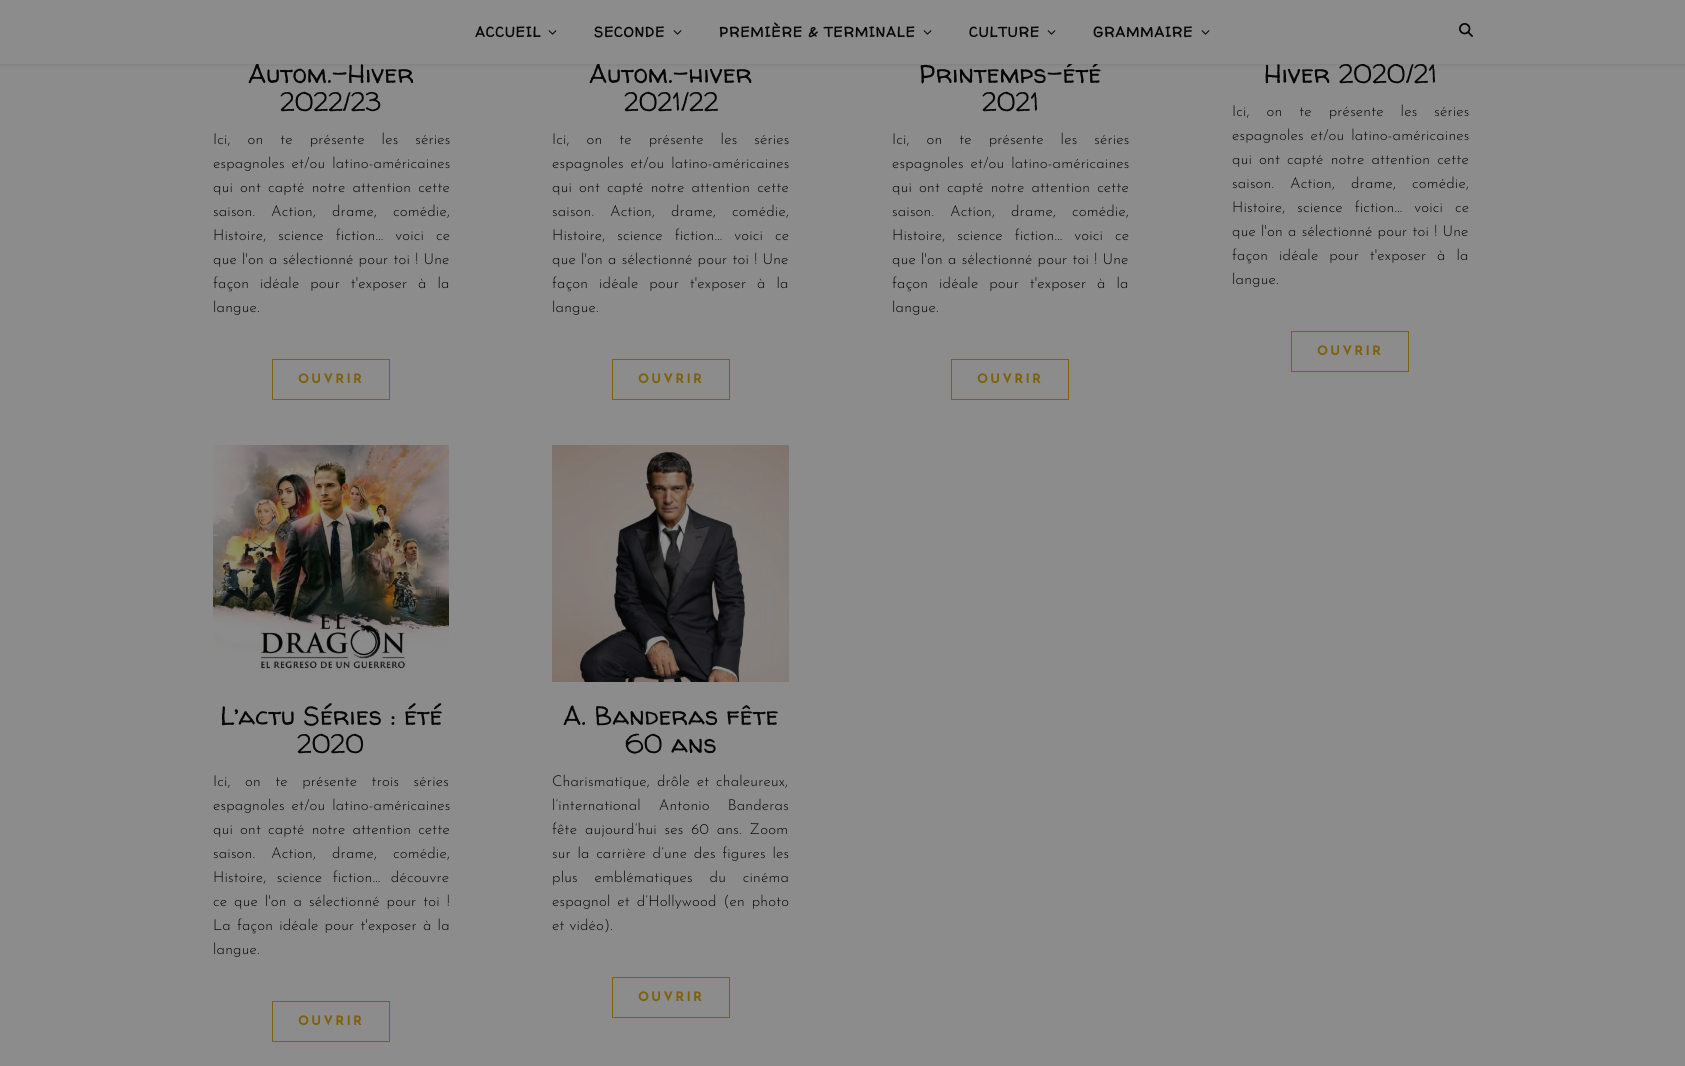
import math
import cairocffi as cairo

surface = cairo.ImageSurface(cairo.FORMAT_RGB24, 1685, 1066)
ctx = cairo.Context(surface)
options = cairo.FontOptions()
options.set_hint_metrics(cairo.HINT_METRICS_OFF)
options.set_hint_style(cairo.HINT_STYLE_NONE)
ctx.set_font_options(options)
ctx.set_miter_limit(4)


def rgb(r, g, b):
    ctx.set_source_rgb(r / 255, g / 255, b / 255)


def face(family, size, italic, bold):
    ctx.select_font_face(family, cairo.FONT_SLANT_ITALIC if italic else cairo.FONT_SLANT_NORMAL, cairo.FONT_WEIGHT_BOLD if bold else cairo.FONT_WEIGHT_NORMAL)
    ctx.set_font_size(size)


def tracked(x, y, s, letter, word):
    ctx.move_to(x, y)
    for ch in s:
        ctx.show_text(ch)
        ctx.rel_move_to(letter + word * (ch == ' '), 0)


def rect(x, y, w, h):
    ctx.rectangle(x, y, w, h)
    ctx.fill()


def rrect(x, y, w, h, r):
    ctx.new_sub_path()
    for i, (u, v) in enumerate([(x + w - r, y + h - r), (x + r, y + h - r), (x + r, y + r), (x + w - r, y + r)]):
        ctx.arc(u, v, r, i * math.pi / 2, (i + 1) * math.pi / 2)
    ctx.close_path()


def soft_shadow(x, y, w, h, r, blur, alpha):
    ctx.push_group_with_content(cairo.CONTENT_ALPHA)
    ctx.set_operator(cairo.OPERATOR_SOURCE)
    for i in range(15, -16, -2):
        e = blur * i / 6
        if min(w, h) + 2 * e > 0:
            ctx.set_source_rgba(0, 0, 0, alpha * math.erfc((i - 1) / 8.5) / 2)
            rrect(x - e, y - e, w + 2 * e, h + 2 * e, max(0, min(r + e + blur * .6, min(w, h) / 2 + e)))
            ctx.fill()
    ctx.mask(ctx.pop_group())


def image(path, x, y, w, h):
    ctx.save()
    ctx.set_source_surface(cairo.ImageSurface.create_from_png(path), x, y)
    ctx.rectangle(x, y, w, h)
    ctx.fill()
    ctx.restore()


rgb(140, 140, 140)
ctx.paint()
rgb(5, 5, 5)
soft_shadow(0, 1, 1685, 64, 0, 2.5, 0.1)
face('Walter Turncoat', 26, 0, 0)
rgb(6, 6, 6)
tracked(248, 83, 'Autom.-Hiver', 0.1, 0)
tracked(589, 83, 'Autom.-hiver', 0.1, 0)
tracked(919, 83, 'Printemps-été', 0.1, 0)
tracked(1264, 83, 'Hiver 2020/21', 0.1, 0)
rgb(140, 140, 140)
rect(0, 0, 1685, 64)
face('Walter Turncoat', 14, 0, 1)
rgb(6, 6, 6)
tracked(475, 37, 'ACCUEIL', 0.9, 0)
image('image0.png', 548, 30, 9, 5)
tracked(594, 37, 'SECONDE', 0.9, 0)
image('image0.png', 673, 30, 9, 5)
tracked(719, 37, 'PREMIÈRE & TERMINALE', 0.9, 0)
image('image0.png', 923, 30, 9, 5)
tracked(969, 37, 'CULTURE', 0.9, 0)
image('image0.png', 1047, 30, 9, 5)
tracked(1093, 37, 'GRAMMAIRE', 0.9, 0)
image('image0.png', 1201, 30, 9, 5)
image('image1.png', 1459, 23, 14, 14)
face('Walter Turncoat', 26, 0, 0)
tracked(280, 111, '2022/23', 0.1, 0)
face('Josefin Sans Light', 15, 0, 0)
tracked(213, 144, 'Ici, on te présente les séries', 0.2, 12)
tracked(213, 168, 'espagnoles et/ou latino-américaines', 0.2, 2)
tracked(213, 192, 'qui ont capté notre attention cette', 0.2, 2.25)
tracked(213, 216, 'saison. Action, drame, comédie,', 0.2, 11)
tracked(213, 240, 'Histoire, science fiction... voici ce', 0.2, 7)
tracked(213, 264, 'que l\'on a sélectionné pour toi ! Une', 0.2, 0.25)
tracked(213, 288, 'façon idéale pour t\'exposer à la', 0.2, 6)
tracked(213, 312, 'langue.', 0.2, 0)
ctx.rectangle(272.5, 359.5, 117, 40)
rgb(126, 97, 12)
ctx.set_line_width(1)
ctx.stroke()
face('Josefin Sans', 13, 0, 1)
tracked(298, 383, 'OUVRIR', 2.25, 0)
face('Walter Turncoat', 26, 0, 0)
rgb(6, 6, 6)
tracked(624, 111, '2021/22', 0.1, 0)
face('Josefin Sans Light', 15, 0, 0)
tracked(552, 144, 'Ici, on te présente les séries', 0.2, 12)
tracked(552, 168, 'espagnoles et/ou latino-américaines', 0.2, 2)
tracked(552, 192, 'qui ont capté notre attention cette', 0.2, 2.25)
tracked(552, 216, 'saison. Action, drame, comédie,', 0.2, 11)
tracked(552, 240, 'Histoire, science fiction... voici ce', 0.2, 7)
tracked(552, 264, 'que l\'on a sélectionné pour toi ! Une', 0.2, 0.25)
tracked(552, 288, 'façon idéale pour t\'exposer à la', 0.2, 6)
tracked(552, 312, 'langue.', 0.2, 0)
ctx.rectangle(612.5, 359.5, 117, 40)
rgb(126, 97, 12)
ctx.stroke()
face('Josefin Sans', 13, 0, 1)
tracked(638, 383, 'OUVRIR', 2.25, 0)
face('Walter Turncoat', 26, 0, 0)
rgb(6, 6, 6)
tracked(982, 111, '2021', 0.1, 0)
face('Josefin Sans Light', 15, 0, 0)
tracked(892, 144, 'Ici, on te présente les séries', 0.2, 12)
tracked(892, 168, 'espagnoles et/ou latino-américaines', 0.2, 2)
tracked(892, 192, 'qui ont capté notre attention cette', 0.2, 2.25)
tracked(892, 216, 'saison. Action, drame, comédie,', 0.2, 11)
tracked(892, 240, 'Histoire, science fiction... voici ce', 0.2, 7)
tracked(892, 264, 'que l\'on a sélectionné pour toi ! Une', 0.2, 0.25)
tracked(892, 288, 'façon idéale pour t\'exposer à la', 0.2, 6)
tracked(892, 312, 'langue.', 0.2, 0)
ctx.rectangle(951.5, 359.5, 117, 40)
rgb(126, 97, 12)
ctx.stroke()
face('Josefin Sans', 13, 0, 1)
tracked(977, 383, 'OUVRIR', 2.25, 0)
face('Josefin Sans Light', 15, 0, 0)
rgb(6, 6, 6)
tracked(1232, 116, 'Ici, on te présente les séries', 0.2, 12)
tracked(1232, 140, 'espagnoles et/ou latino-américaines', 0.2, 2)
tracked(1232, 164, 'qui ont capté notre attention cette', 0.2, 2.25)
tracked(1232, 188, 'saison. Action, drame, comédie,', 0.2, 11)
tracked(1232, 212, 'Histoire, science fiction... voici ce', 0.2, 7)
tracked(1232, 236, 'que l\'on a sélectionné pour toi ! Une', 0.2, 0.25)
tracked(1232, 260, 'façon idéale pour t\'exposer à la', 0.2, 6)
tracked(1232, 284, 'langue.', 0.2, 0)
ctx.rectangle(1291.5, 331.5, 117, 40)
rgb(126, 97, 12)
ctx.stroke()
face('Josefin Sans', 13, 0, 1)
tracked(1317, 355, 'OUVRIR', 2.25, 0)
image('image2.png', 213, 445, 236, 228)
face('Walter Turncoat', 26, 0, 0)
rgb(6, 6, 6)
tracked(220, 725, 'L’actu Séries : été', 0.1, 0)
tracked(297, 753, '2020', 0.1, 0)
face('Josefin Sans Light', 15, 0, 0)
tracked(213, 786, 'Ici, on te présente trois séries', 0.2, 9.5)
tracked(213, 810, 'espagnoles et/ou latino-américaines', 0.2, 2)
tracked(213, 834, 'qui ont capté notre attention cette', 0.2, 2.25)
tracked(213, 858, 'saison. Action, drame, comédie,', 0.2, 11)
tracked(213, 882, 'Histoire, science fiction... découvre', 0.2, 5.5)
tracked(213, 906, 'ce que l\'on a sélectionné pour toi !', 0.2, 2)
tracked(213, 930, 'La façon idéale pour t\'exposer à la', 0.2, 1.25)
tracked(213, 954, 'langue.', 0.2, 0)
ctx.rectangle(272.5, 1001.5, 117, 40)
rgb(126, 97, 12)
ctx.stroke()
face('Josefin Sans', 13, 0, 1)
tracked(298, 1025, 'OUVRIR', 2.25, 0)
image('image3.png', 552, 445, 237, 237)
face('Walter Turncoat', 26, 0, 0)
rgb(6, 6, 6)
tracked(563, 725, 'A. Banderas fête', 0.1, 0)
tracked(625, 753, '60 ans', 0.1, 0)
face('Josefin Sans Light', 15, 0, 0)
tracked(552, 786, 'Charismatique, drôle et chaleureux,', 0.2, 2)
tracked(552, 810, 'l’international Antonio Banderas', 0.2, 13)
tracked(552, 834, 'fête aujourd’hui ses 60 ans. Zoom', 0.2, 3)
tracked(552, 858, 'sur la carrière d’une des figures les', 0.2, 1.75)
tracked(552, 882, 'plus emblématiques du cinéma', 0.2, 12)
tracked(552, 906, 'espagnol et d’Hollywood (en photo', 0.2, 2)
tracked(552, 930, 'et vidéo).', 0.2, 0)
ctx.rectangle(612.5, 977.5, 117, 40)
rgb(126, 97, 12)
ctx.stroke()
face('Josefin Sans', 13, 0, 1)
tracked(638, 1001, 'OUVRIR', 2.25, 0)
surface.write_to_png('render.png')
